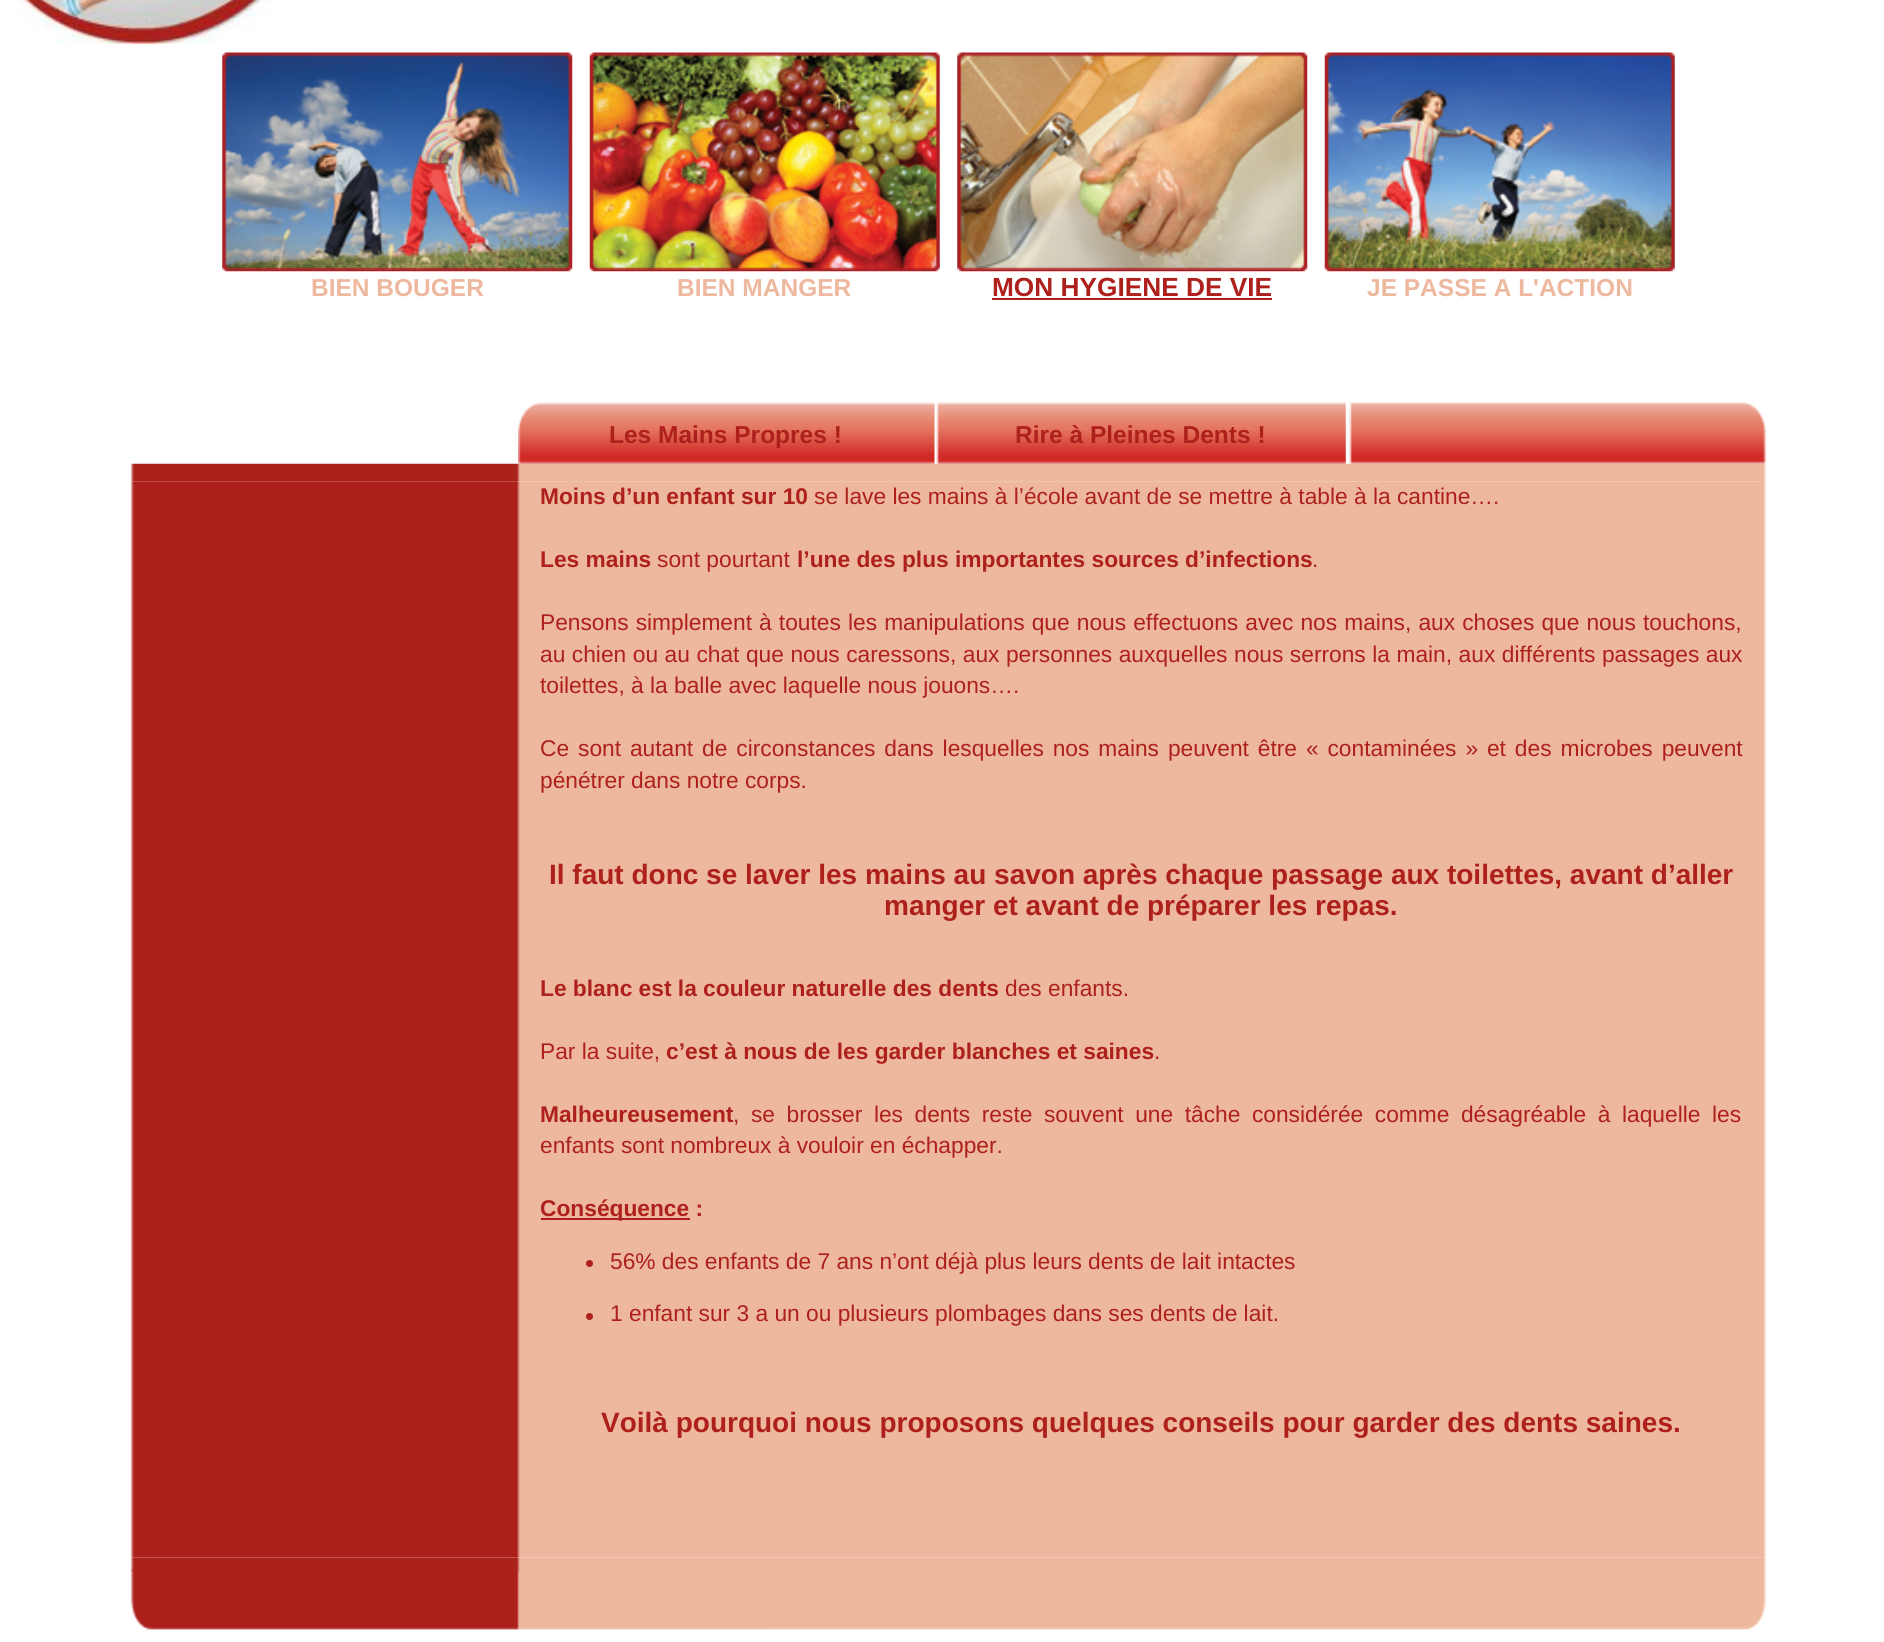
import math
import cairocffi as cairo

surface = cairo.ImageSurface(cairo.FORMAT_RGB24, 1884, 1642)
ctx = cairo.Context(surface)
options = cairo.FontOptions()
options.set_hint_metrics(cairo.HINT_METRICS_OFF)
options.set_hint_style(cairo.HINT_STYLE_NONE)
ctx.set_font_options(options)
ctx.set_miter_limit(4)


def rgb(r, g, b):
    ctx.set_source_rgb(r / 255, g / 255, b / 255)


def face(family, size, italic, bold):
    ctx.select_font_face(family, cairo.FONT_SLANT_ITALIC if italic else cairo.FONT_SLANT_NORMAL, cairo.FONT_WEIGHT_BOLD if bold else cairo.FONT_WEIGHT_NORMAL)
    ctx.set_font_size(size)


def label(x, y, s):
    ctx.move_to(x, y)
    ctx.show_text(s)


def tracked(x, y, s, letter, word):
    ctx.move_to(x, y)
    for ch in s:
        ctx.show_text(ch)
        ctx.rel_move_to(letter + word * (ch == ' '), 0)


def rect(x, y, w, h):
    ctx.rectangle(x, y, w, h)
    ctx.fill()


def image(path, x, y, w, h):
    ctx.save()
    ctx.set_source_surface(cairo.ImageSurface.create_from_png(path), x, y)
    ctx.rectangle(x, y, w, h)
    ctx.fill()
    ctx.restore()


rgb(255, 255, 255)
ctx.paint()
image('image0.png', 2, 0, 276, 44)
image('image1.png', 222, 52, 351, 220)
face('Liberation Sans', 24.5, 0, 1)
rgb(238, 184, 158)
label(311, 296, 'BIEN BOUGER')
image('image2.png', 589, 52, 351, 220)
label(677, 296, 'BIEN MANGER')
image('image3.png', 957, 52, 351, 220)
face('Liberation Sans', 26.25, 0, 1)
rgb(173, 32, 28)
label(992, 296, 'MON HYGIENE DE VIE')
rect(992, 298, 280, 2)
image('image4.png', 1324, 52, 351, 220)
face('Liberation Sans', 24.5, 0, 1)
rgb(238, 184, 158)
label(1367, 296, 'JE PASSE A L\'ACTION')
image('image8.png', 130, 463, 1637, 19)
image('image5.png', 518, 402, 417, 62)
rgb(173, 32, 28)
label(609, 443, 'Les Mains Propres !')
image('image6.png', 936, 402, 410, 62)
label(1015, 443, 'Rire à Pleines Dents !')
image('image7.png', 1349, 402, 417, 62)
image('image9.png', 130, 481, 1636, 1077)
face('Liberation Sans', 22.75, 0, 1)
label(540, 504, 'Moins d’un enfant sur 10')
face('Liberation Sans', 22.75, 0, 0)
label(814, 504, 'se lave les mains à l’école avant de se mettre à table à la cantine….')
face('Liberation Sans', 22.75, 0, 1)
label(540, 567, 'Les mains')
face('Liberation Sans', 22.75, 0, 0)
label(657, 567, 'sont pourtant')
face('Liberation Sans', 22.75, 0, 1)
label(797, 567, 'l’une des plus importantes sources d’infections')
face('Liberation Sans', 22.75, 0, 0)
label(1312, 567, '.')
tracked(540, 630, 'Pensons simplement à toutes les manipulations que nous effectuons avec nos mains, aux choses que nous touchons,', 0, 0.8)
tracked(540, 662, 'au chien ou au chat que nous caressons, aux personnes auxquelles nous serrons la main, aux différents passages aux', 0, 0.2)
label(540, 693, 'toilettes, à la balle avec laquelle nous jouons….')
tracked(540, 756, 'Ce sont autant de circonstances dans lesquelles nos mains peuvent être « contaminées » et des microbes peuvent', 0, 2.6)
label(540, 788, 'pénétrer dans notre corps.')
face('Liberation Sans', 28, 0, 1)
label(549, 884, 'Il faut donc se laver les mains au savon après chaque passage aux toilettes, avant d’aller')
label(884, 915, 'manger et avant de préparer les repas.')
face('Liberation Sans', 22.75, 0, 1)
label(540, 996, 'Le blanc est la couleur naturelle des dents')
face('Liberation Sans', 22.75, 0, 0)
label(1005, 996, 'des enfants.')
label(540, 1059, 'Par la suite,')
face('Liberation Sans', 22.75, 0, 1)
label(666, 1059, 'c’est à nous de les garder blanches et saines')
face('Liberation Sans', 22.75, 0, 0)
label(1154, 1059, '.')
face('Liberation Sans', 22.75, 0, 1)
label(540, 1122, 'Malheureusement')
face('Liberation Sans', 22.75, 0, 0)
tracked(733, 1122, ', se brosser les dents reste souvent une tâche considérée comme désagréable à laquelle les', 0, 5.25)
label(540, 1153, 'enfants sont nombreux à vouloir en échapper.')
rect(541, 1218, 149, 2)
face('Liberation Sans', 22.75, 0, 1)
label(540, 1216, 'Conséquence :')
ctx.new_path()
ctx.arc(589.5, 1263.5, 3.5, 0, 2 * math.pi)
ctx.fill()
face('Liberation Sans', 22.75, 0, 0)
label(610, 1269, '56% des enfants de 7 ans n’ont déjà plus leurs dents de lait intactes')
ctx.new_path()
ctx.arc(589.5, 1316.5, 3.5, 0, 2 * math.pi)
ctx.fill()
label(610, 1321, '1 enfant sur 3 a un ou plusieurs plombages dans ses dents de lait.')
face('Liberation Sans', 28, 0, 1)
label(601, 1432, 'Voilà pourquoi nous proposons quelques conseils pour garder des dents saines.')
image('image10.png', 130, 1557, 1637, 73)
surface.write_to_png('render.png')
